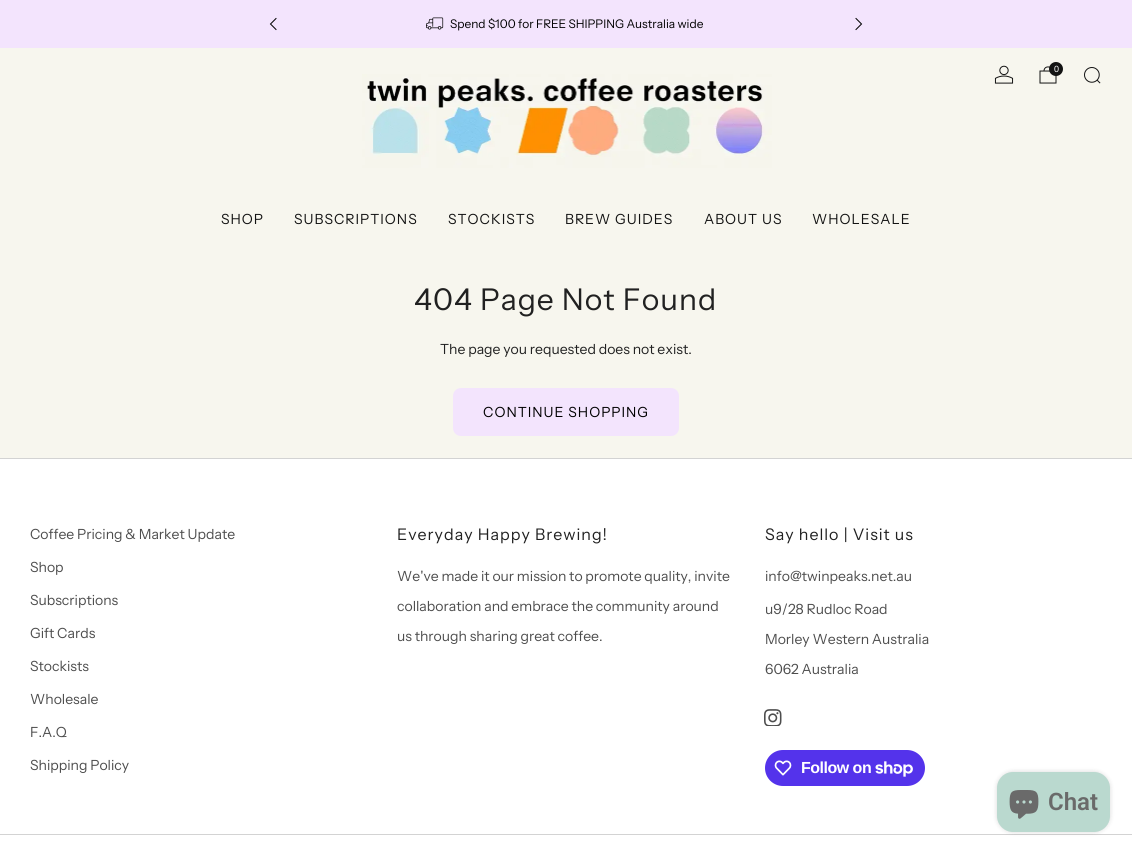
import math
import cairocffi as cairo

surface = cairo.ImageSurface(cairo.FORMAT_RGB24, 1132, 853)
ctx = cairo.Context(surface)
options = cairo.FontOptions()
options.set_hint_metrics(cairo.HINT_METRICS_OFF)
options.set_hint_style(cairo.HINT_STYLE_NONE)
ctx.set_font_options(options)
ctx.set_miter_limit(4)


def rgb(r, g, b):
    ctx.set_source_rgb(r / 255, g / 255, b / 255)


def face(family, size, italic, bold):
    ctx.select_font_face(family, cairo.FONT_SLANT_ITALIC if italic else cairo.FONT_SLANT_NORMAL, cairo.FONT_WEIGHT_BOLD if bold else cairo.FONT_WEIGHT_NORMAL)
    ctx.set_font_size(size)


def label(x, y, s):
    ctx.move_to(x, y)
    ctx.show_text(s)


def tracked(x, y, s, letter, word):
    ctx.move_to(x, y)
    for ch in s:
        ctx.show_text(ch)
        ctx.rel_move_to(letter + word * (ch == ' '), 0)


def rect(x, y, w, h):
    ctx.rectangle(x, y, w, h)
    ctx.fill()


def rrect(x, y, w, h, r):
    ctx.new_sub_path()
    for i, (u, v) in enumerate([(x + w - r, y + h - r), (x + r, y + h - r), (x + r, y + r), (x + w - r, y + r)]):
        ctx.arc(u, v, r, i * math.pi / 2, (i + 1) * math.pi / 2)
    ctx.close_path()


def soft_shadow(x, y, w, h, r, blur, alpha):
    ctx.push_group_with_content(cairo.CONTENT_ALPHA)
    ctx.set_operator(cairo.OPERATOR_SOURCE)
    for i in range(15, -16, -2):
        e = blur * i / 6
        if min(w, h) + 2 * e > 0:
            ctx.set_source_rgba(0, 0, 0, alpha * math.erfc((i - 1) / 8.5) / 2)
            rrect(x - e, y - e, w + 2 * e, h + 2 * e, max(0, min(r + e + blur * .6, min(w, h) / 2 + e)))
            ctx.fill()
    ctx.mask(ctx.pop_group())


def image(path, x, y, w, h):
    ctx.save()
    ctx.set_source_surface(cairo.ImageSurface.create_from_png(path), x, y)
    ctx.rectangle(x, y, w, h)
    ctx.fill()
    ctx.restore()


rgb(247, 246, 238)
ctx.paint()
rgb(243, 228, 253)
rect(0, 0, 1132, 48)
ctx.new_path()
ctx.move_to(276, 29.5)
ctx.line_to(270.5, 24)
ctx.line_to(276, 18.5)
rgb(0, 0, 0)
ctx.set_line_width(1)
ctx.set_line_cap(cairo.LINE_CAP_SQUARE)
ctx.stroke()
image('image0.png', 426, 17, 18, 13)
face('Instrument Sans', 11.9, 0, 0)
label(450, 28, 'Spend $100 for FREE SHIPPING Australia wide')
ctx.new_path()
ctx.move_to(856, 18.5)
ctx.line_to(861.5, 24)
ctx.line_to(856, 29.5)
ctx.stroke()
image('image1.png', 994, 65, 20, 19)
ctx.new_path()
ctx.move_to(1052, 71)
ctx.curve_to(1052, 65.5, 1044, 65.5, 1044, 71)
ctx.move_to(1040, 71)
ctx.line_to(1056, 71)
ctx.line_to(1056, 83)
ctx.line_to(1040, 83)
ctx.close_path()
rgb(19, 19, 19)
ctx.set_line_cap(cairo.LINE_CAP_BUTT)
ctx.stroke()
ctx.arc(1056, 69, 7, 0, 2 * math.pi)
ctx.fill()
face('Liberation Sans', 9, 0, 0)
rgb(255, 255, 255)
label(1054, 72, '0')
image('image2.png', 1084, 67, 17, 17)
face('Instrument Sans', 14, 0, 0)
rgb(19, 19, 19)
tracked(221, 224, 'SHOP', 1, 0)
tracked(294, 224, 'SUBSCRIPTIONS', 1, 0)
tracked(448, 224, 'STOCKISTS', 1, 0)
tracked(565, 224, 'BREW GUIDES', 1, 0)
tracked(704, 224, 'ABOUT US', 1, 0)
tracked(812, 224, 'WHOLESALE', 1, 0)
image('image3.png', 362, 74, 410, 94)
face('Instrument Sans', 30, 0, 0)
rgb(33, 33, 33)
tracked(414, 310, '404 Page Not Found', 1, 0)
face('Instrument Sans', 14, 0, 0)
label(440, 354, 'The page you requested does not exist.')
rgb(243, 228, 253)
rrect(453, 388, 226, 48, 8)
ctx.fill()
rgb(0, 0, 0)
tracked(483, 417, 'CONTINUE SHOPPING', 1, 0)
rgb(255, 255, 255)
rect(0, 459, 1132, 394)
rgb(211, 211, 211)
rect(0, 458, 1132, 1)
rgb(77, 77, 77)
label(30, 539, 'Coffee Pricing & Market Update')
label(30, 572, 'Shop')
label(30, 605, 'Subscriptions')
label(30, 638, 'Gift Cards')
label(30, 671, 'Stockists')
label(30, 704, 'Wholesale')
label(30, 737, 'F.A.Q')
label(30, 770, 'Shipping Policy')
face('Instrument Sans', 16, 0, 0)
rgb(33, 33, 33)
tracked(397, 540, 'Everyday Happy Brewing!', 1, 0)
face('Instrument Sans', 14, 0, 0)
rgb(77, 77, 77)
label(397, 581, 'We\'ve made it our mission to promote quality, invite')
label(397, 611, 'collaboration and embrace the community around')
label(397, 641, 'us through sharing great coffee.')
face('Instrument Sans', 16, 0, 0)
rgb(33, 33, 33)
tracked(765, 540, 'Say hello | Visit us', 1, 0)
face('Instrument Sans', 14, 0, 0)
rgb(77, 77, 77)
label(765, 581, 'info@twinpeaks.net.au')
label(765, 614, 'u9/28 Rudloc Road')
label(765, 644, 'Morley Western Australia')
label(765, 674, '6062 Australia')
image('image4.png', 764, 709, 18, 17)
rgb(84, 51, 235)
rrect(765, 750, 160, 36, 18)
ctx.fill()
image('image5.png', 774, 760, 18, 16)
face('Liberation Sans', 16, 0, 1)
rgb(255, 255, 255)
tracked(801, 773, 'Follow on', -0.5, 0)
image('image6.png', 875, 761, 38, 16)
rgb(211, 211, 211)
rect(0, 834, 1132, 1)
rgb(0, 0, 0)
soft_shadow(997, 772, 113, 60, 16, 2.5, 0.15)
rgb(186, 217, 207)
rrect(997, 772, 113, 60, 16)
ctx.fill()
image('image7.png', 1009, 790, 30, 29)
face('Roboto SemiBold', 24, 0, 0)
rgb(106, 106, 106)
label(1048, 810, 'Chat')
surface.write_to_png('render.png')
